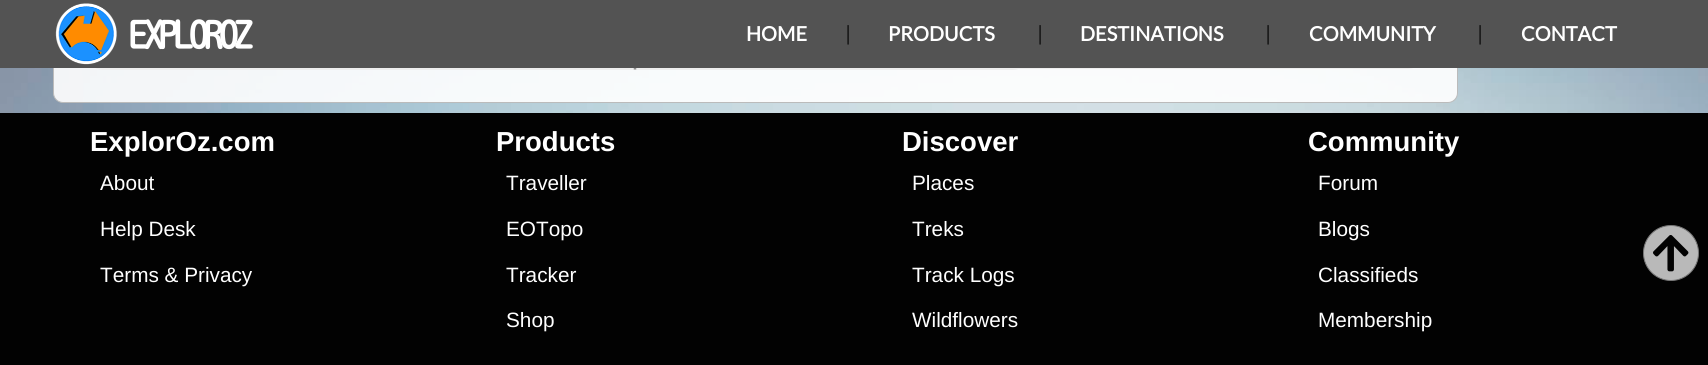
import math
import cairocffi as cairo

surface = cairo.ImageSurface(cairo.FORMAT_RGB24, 1708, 365)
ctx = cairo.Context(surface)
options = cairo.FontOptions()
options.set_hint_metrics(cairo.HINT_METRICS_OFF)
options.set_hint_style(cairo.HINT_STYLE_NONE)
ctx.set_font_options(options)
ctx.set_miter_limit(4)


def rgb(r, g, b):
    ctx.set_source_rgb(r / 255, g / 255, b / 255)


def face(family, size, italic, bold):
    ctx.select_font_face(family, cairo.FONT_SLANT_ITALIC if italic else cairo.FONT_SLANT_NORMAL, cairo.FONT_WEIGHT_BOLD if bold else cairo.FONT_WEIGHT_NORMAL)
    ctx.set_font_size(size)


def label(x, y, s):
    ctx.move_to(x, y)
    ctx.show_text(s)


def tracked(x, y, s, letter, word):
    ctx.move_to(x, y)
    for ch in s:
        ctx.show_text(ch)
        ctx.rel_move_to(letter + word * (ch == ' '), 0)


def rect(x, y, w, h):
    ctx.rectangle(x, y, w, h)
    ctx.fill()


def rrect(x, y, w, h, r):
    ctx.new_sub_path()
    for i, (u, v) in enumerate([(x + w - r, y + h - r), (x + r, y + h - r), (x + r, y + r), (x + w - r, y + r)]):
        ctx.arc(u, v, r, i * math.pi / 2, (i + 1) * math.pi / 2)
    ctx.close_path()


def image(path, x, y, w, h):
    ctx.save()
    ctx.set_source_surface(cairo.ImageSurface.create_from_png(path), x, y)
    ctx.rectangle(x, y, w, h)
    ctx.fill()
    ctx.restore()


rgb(255, 255, 255)
ctx.paint()
image('image1.png', 0, 68, 1708, 45)
ctx.set_source_rgba(1, 1, 1, 0.9)
rrect(53.5, -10.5, 1404, 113, 9.5)
ctx.fill_preserve()
rgb(187, 187, 187)
ctx.set_line_width(1)
ctx.stroke()
rgb(238, 238, 238)
rrect(83, -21, 950, 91, 21)
ctx.fill()
ctx.new_path()
ctx.move_to(635, -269)
ctx.line_to(635, 70)
rgb(142, 142, 142)
ctx.set_line_width(2.5)
ctx.set_dash([7.5, 4.76])
ctx.stroke()
rgb(238, 238, 238)
ctx.new_path()
ctx.move_to(1001, -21)
ctx.line_to(1407, -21)
ctx.curve_to(1418.5, -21, 1428, -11.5, 1428, 0)
ctx.line_to(1428, 48)
ctx.curve_to(1428, 59.5, 1418.5, 69, 1407, 69)
ctx.line_to(1001, 69)
ctx.close_path()
ctx.fill()
rgb(83, 83, 83)
rect(0, 0, 1708, 68)
image('image0.png', 55, 3, 62, 62)
face('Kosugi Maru', 37.5, 0, 1)
rgb(255, 255, 255)
tracked(129, 49, 'EXPLOROZ', -3.75, 0)
face('Lato', 20, 0, 1)
label(746, 41, 'HOME')
face('Lato', 20.75, 0, 0)
rgb(17, 17, 17)
label(845, 41, '|')
face('Lato', 20, 0, 1)
rgb(255, 255, 255)
label(888, 41, 'PRODUCTS')
face('Lato', 20.75, 0, 0)
rgb(17, 17, 17)
label(1037, 41, '|')
face('Lato', 20, 0, 1)
rgb(255, 255, 255)
label(1080, 41, 'DESTINATIONS')
face('Lato', 20.75, 0, 0)
rgb(17, 17, 17)
label(1265, 41, '|')
face('Lato', 20, 0, 1)
rgb(255, 255, 255)
label(1309, 41, 'COMMUNITY')
face('Lato', 20.75, 0, 0)
rgb(17, 17, 17)
label(1477, 41, '|')
face('Lato', 20, 0, 1)
rgb(255, 255, 255)
label(1521, 41, 'CONTACT')
rgb(2, 2, 2)
rect(0, 113, 1708, 252)
face('Liberation Sans', 27.5, 0, 1)
rgb(255, 255, 255)
label(90, 151, 'ExplorOz.com')
face('Liberation Sans', 20.75, 0, 0)
label(100, 190, 'About')
label(100, 236, 'Help Desk')
label(100, 282, 'Terms & Privacy')
face('Liberation Sans', 27.5, 0, 1)
label(496, 151, 'Products')
face('Liberation Sans', 20.75, 0, 0)
label(506, 190, 'Traveller')
label(506, 236, 'EOTopo')
label(506, 282, 'Tracker')
label(506, 327, 'Shop')
face('Liberation Sans', 27.5, 0, 1)
label(902, 151, 'Discover')
face('Liberation Sans', 20.75, 0, 0)
label(912, 190, 'Places')
label(912, 236, 'Treks')
label(912, 282, 'Track Logs')
label(912, 327, 'Wildflowers')
face('Liberation Sans', 27.5, 0, 1)
label(1308, 151, 'Community')
face('Liberation Sans', 20.75, 0, 0)
label(1318, 190, 'Forum')
label(1318, 236, 'Blogs')
label(1318, 282, 'Classifieds')
label(1318, 327, 'Membership')
rgb(185, 185, 185)
ctx.new_path()
ctx.arc(1671, 253, 27.5, 0, 2 * math.pi)
ctx.fill_preserve()
rgb(118, 118, 118)
ctx.set_line_width(1)
ctx.set_dash([])
ctx.stroke()
image('image2.png', 1653, 235, 36, 37)
surface.write_to_png('render.png')
